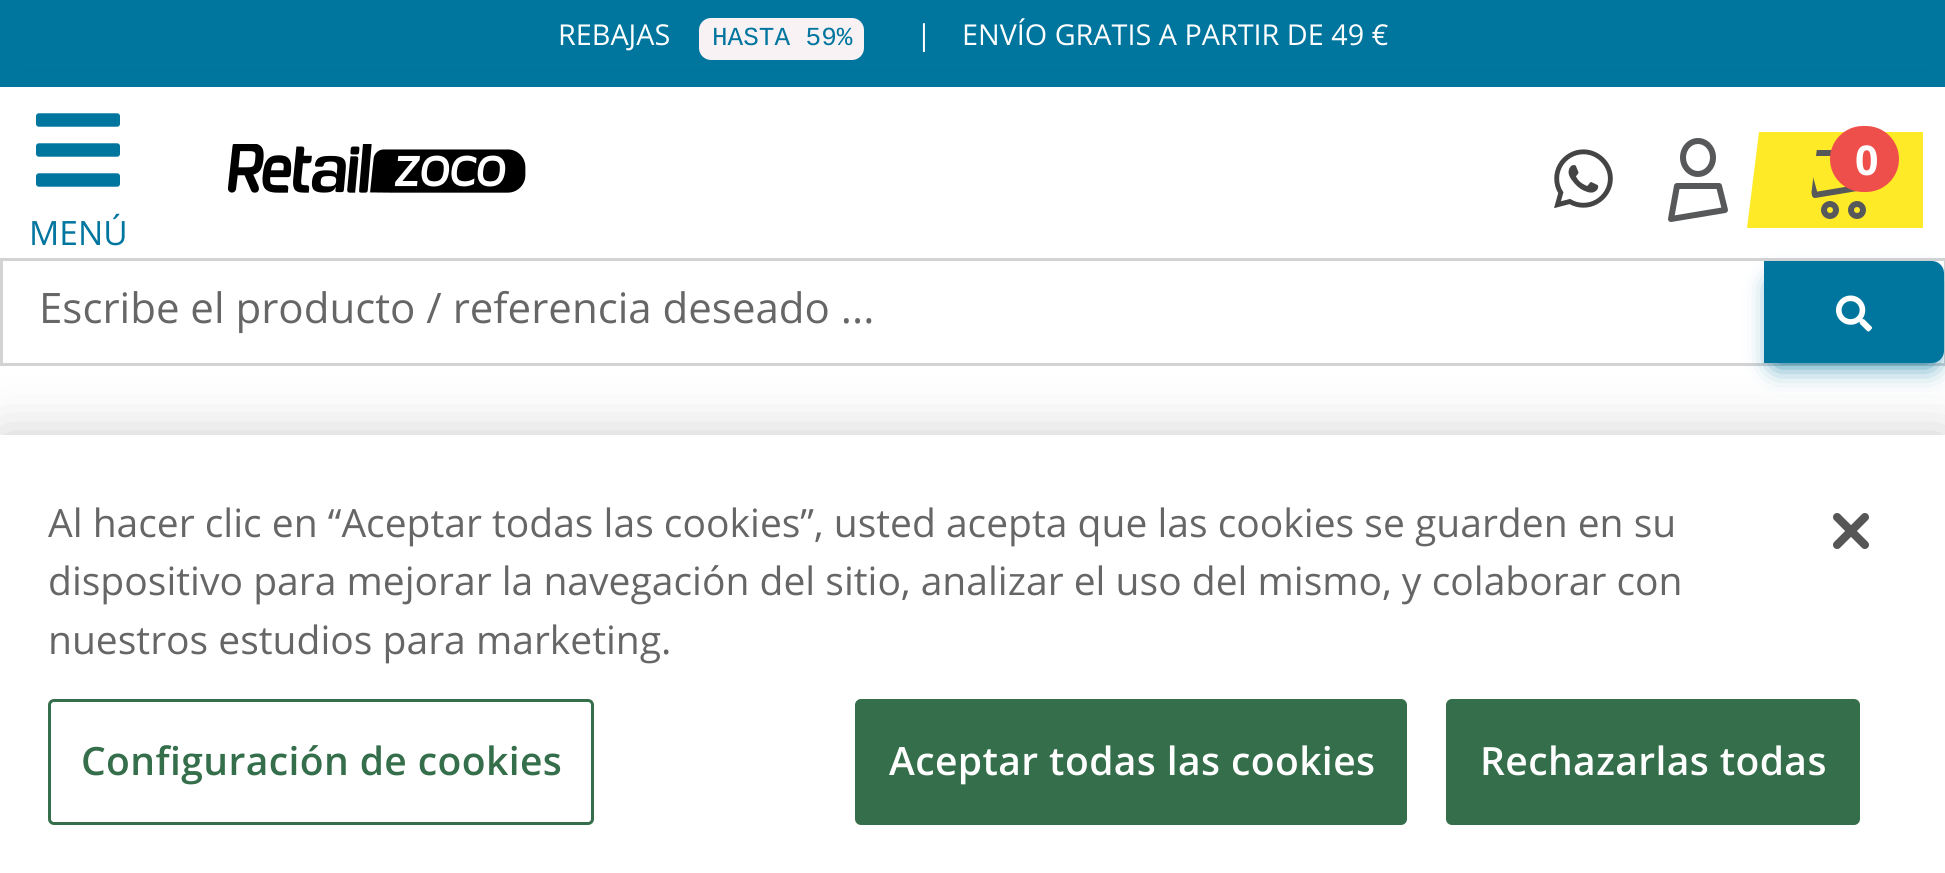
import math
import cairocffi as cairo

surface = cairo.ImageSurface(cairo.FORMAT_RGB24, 1945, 873)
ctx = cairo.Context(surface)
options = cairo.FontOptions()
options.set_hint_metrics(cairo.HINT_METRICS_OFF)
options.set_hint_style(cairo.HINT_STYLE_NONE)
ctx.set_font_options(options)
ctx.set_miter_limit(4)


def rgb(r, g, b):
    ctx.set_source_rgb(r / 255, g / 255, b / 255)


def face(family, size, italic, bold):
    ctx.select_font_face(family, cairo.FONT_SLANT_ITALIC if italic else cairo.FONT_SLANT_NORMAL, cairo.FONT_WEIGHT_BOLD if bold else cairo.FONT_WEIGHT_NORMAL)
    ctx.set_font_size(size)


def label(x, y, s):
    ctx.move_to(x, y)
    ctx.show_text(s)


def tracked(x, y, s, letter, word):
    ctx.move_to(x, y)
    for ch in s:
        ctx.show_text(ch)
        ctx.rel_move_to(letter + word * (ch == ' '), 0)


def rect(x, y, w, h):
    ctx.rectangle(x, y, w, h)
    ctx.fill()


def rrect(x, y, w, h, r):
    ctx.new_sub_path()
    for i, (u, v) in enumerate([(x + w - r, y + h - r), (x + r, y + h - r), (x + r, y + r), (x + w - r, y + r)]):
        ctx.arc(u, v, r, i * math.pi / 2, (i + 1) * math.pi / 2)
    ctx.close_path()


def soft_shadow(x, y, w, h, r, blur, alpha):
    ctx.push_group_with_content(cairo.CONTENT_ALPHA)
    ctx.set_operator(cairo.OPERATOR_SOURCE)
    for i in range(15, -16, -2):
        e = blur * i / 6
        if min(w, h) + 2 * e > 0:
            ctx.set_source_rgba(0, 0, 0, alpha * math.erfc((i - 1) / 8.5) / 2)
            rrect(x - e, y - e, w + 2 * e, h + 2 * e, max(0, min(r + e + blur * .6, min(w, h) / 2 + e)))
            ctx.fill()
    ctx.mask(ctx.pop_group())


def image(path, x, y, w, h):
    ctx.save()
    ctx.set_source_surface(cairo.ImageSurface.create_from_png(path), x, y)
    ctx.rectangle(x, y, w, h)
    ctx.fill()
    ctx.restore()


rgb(255, 255, 255)
ctx.paint()
rgb(0, 117, 158)
rect(0, 0, 1945, 72)
face('Open Sans', 28.75, 0, 0)
rgb(255, 255, 255)
label(558, 45, 'REBAJAS')
ctx.save()
ctx.rectangle(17, 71, 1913, 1)
ctx.clip()
rgb(0, 0, 0)
soft_shadow(0, 84, 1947, 186, 0, 9, 0.25)
ctx.restore()
rgb(249, 242, 244)
rrect(699, 18, 165, 42, 12)
ctx.fill()
face('Liberation Mono', 26, 0, 0)
rgb(0, 117, 158)
label(712, 45, 'HASTA 59%')
face('Open Sans', 28.75, 0, 0)
rgb(255, 255, 255)
label(916, 45, '|')
label(962, 45, 'ENVÍO GRATIS A PARTIR DE 49 €')
rgb(0, 117, 158)
rect(0, 72, 1945, 15)
image('image0.png', 1554, 149, 59, 60)
image('image1.png', 1668, 138, 60, 84)
rgb(255, 234, 40)
rect(1807, 132, 116, 96)
image('image2.png', 1811, 150, 55, 69)
ctx.new_path()
ctx.move_to(1759, 132)
ctx.line_to(1819, 132)
ctx.line_to(1807, 228)
ctx.line_to(1747, 228)
ctx.close_path()
ctx.fill()
rgb(239, 79, 74)
rrect(1830, 126, 69, 66, 33)
ctx.fill()
face('Open Sans', 41, 0, 1)
rgb(255, 255, 255)
label(1855, 175, '0')
image('image3.png', 227, 144, 299, 49)
image('image4.png', 36, 113, 84, 74)
face('Open Sans', 33.5, 0, 0)
rgb(0, 117, 158)
label(29, 245, 'MENÚ')
rgb(255, 255, 255)
rect(3, 261, 1941, 25)
ctx.rectangle(1.5, 259.5, 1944, 105)
rgb(211, 211, 211)
ctx.set_line_width(3)
ctx.stroke()
face('Open Sans', 42, 0, 0)
rgb(102, 102, 102)
label(39, 323, 'Escribe el producto / referencia deseado ...')
rgb(0, 117, 158)
soft_shadow(1776, 285, 156, 78, 0, 13.5, 1)
rgb(0, 117, 158)
ctx.new_path()
ctx.move_to(1764, 261)
ctx.line_to(1932, 261)
ctx.curve_to(1938.5, 261, 1944, 266.5, 1944, 273)
ctx.line_to(1944, 351)
ctx.curve_to(1944, 357.5, 1938.5, 363, 1932, 363)
ctx.line_to(1764, 363)
ctx.close_path()
ctx.fill()
image('image5.png', 1836, 295, 36, 37)
rgb(0, 0, 0)
soft_shadow(0, 435, 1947, 438, 0, 27, 0.2)
rgb(255, 255, 255)
rect(0, 435, 1945, 438)
face('Open Sans', 39, 0, 0)
rgb(102, 102, 102)
label(48, 537, 'Al hacer clic en “Aceptar todas las cookies”, usted acepta que las cookies se guarden en su')
label(48, 595, 'dispositivo para mejorar la navegación del sitio, analizar el uso del mismo, y colaborar con')
label(48, 654, 'nuestros estudios para marketing.')
rrect(49.5, 700.5, 543, 123, 4.5)
rgb(52, 110, 74)
ctx.stroke()
face('Open Sans SemiBold', 39, 0, 0)
tracked(81, 775, 'Configuración de cookies', 0.4, 0)
rrect(856.5, 700.5, 549, 123, 4.5)
ctx.fill_preserve()
ctx.stroke()
rgb(255, 255, 255)
tracked(889, 775, 'Aceptar todas las cookies', 0.4, 0)
rgb(52, 110, 74)
rrect(1447.5, 700.5, 411, 123, 4.5)
ctx.fill_preserve()
ctx.stroke()
rgb(255, 255, 255)
tracked(1480, 775, 'Rechazarlas todas', 0.4, 0)
image('image6.png', 1833, 513, 36, 36)
surface.write_to_png('render.png')
